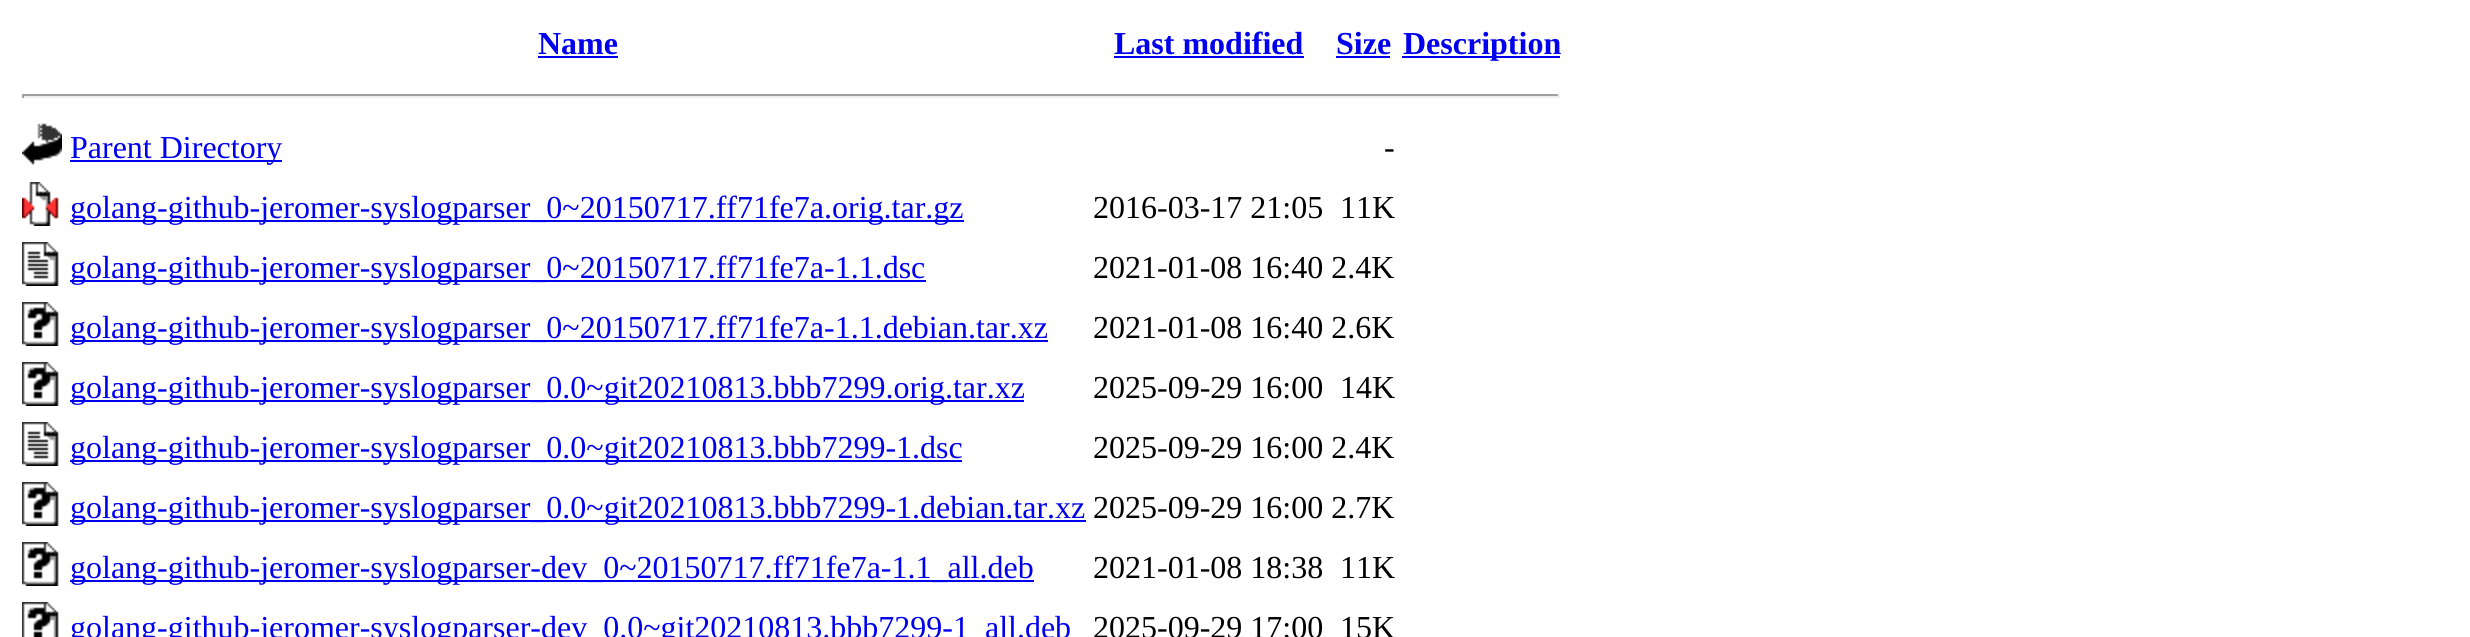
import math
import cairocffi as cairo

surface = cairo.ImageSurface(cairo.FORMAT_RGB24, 2470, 637)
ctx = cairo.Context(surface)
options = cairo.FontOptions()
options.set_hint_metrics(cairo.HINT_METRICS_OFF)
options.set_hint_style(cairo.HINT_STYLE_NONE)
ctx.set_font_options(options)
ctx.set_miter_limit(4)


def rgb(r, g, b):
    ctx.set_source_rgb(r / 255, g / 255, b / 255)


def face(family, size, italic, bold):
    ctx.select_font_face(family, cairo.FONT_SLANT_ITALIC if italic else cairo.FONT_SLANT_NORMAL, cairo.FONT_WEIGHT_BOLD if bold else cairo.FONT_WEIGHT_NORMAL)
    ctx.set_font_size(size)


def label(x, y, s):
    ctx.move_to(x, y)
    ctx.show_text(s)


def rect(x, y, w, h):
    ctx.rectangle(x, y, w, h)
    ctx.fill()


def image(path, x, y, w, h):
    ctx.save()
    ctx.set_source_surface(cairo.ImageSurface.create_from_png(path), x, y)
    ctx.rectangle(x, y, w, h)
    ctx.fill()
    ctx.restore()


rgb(255, 255, 255)
ctx.paint()
face('Liberation Serif', 32, 0, 1)
rgb(0, 0, 238)
label(538, 54, 'Name')
rect(538, 56, 80, 2)
label(1114, 54, 'Last modified')
rect(1114, 56, 190, 2)
label(1336, 54, 'Size')
rect(1336, 56, 54, 2)
rect(1402, 56, 158, 2)
label(1403, 54, 'Description')
rgb(159, 159, 159)
rect(22, 94, 1538, 2)
rgb(238, 238, 238)
rect(1558, 94, 2, 4)
rect(22, 96, 1538, 2)
rgb(159, 159, 159)
rect(22, 94, 2, 4)
image('image0.png', 22, 123, 40, 42)
rgb(0, 0, 238)
rect(70, 160, 212, 2)
face('Liberation Serif', 32, 0, 0)
label(70, 158, 'Parent Directory')
rgb(0, 0, 0)
label(1384, 158, '-')
image('image1.png', 22, 182, 37, 44)
rgb(0, 0, 238)
rect(70, 220, 894, 2)
label(70, 218, 'golang-github-jeromer-syslogparser_0~20150717.ff71fe7a.orig.tar.gz')
rgb(0, 0, 0)
label(1093, 218, '2016-03-17 21:05')
label(1340, 218, '11K')
image('image2.png', 22, 242, 37, 44)
rgb(0, 0, 238)
rect(70, 280, 856, 2)
label(70, 278, 'golang-github-jeromer-syslogparser_0~20150717.ff71fe7a-1.1.dsc')
rgb(0, 0, 0)
label(1093, 278, '2021-01-08 16:40 2.4K')
image('image3.png', 22, 302, 37, 44)
rgb(0, 0, 238)
rect(70, 340, 978, 2)
label(70, 338, 'golang-github-jeromer-syslogparser_0~20150717.ff71fe7a-1.1.debian.tar.xz')
rgb(0, 0, 0)
label(1093, 338, '2021-01-08 16:40 2.6K')
image('image3.png', 22, 362, 37, 44)
rgb(0, 0, 238)
rect(70, 400, 954, 2)
label(70, 398, 'golang-github-jeromer-syslogparser_0.0~git20210813.bbb7299.orig.tar.xz')
rgb(0, 0, 0)
label(1093, 398, '2025-09-29 16:00')
label(1340, 398, '14K')
image('image2.png', 22, 422, 37, 44)
rgb(0, 0, 238)
rect(70, 460, 892, 2)
label(70, 458, 'golang-github-jeromer-syslogparser_0.0~git20210813.bbb7299-1.dsc')
rgb(0, 0, 0)
label(1093, 458, '2025-09-29 16:00 2.4K')
image('image3.png', 22, 482, 37, 44)
rgb(0, 0, 238)
rect(70, 520, 1016, 2)
label(70, 518, 'golang-github-jeromer-syslogparser_0.0~git20210813.bbb7299-1.debian.tar.xz')
rgb(0, 0, 0)
label(1093, 518, '2025-09-29 16:00 2.7K')
image('image3.png', 22, 542, 37, 44)
rgb(0, 0, 238)
rect(70, 580, 964, 2)
label(70, 578, 'golang-github-jeromer-syslogparser-dev_0~20150717.ff71fe7a-1.1_all.deb')
rgb(0, 0, 0)
label(1093, 578, '2021-01-08 18:38')
label(1340, 578, '11K')
image('image4.png', 22, 602, 37, 35)
rgb(0, 0, 238)
label(70, 638, 'golang-github-jeromer-syslogparser-dev_0.0~git20210813.bbb7299-1_all.deb')
rgb(0, 0, 0)
label(1093, 638, '2025-09-29 17:00')
label(1340, 638, '15K')
surface.write_to_png('render.png')
